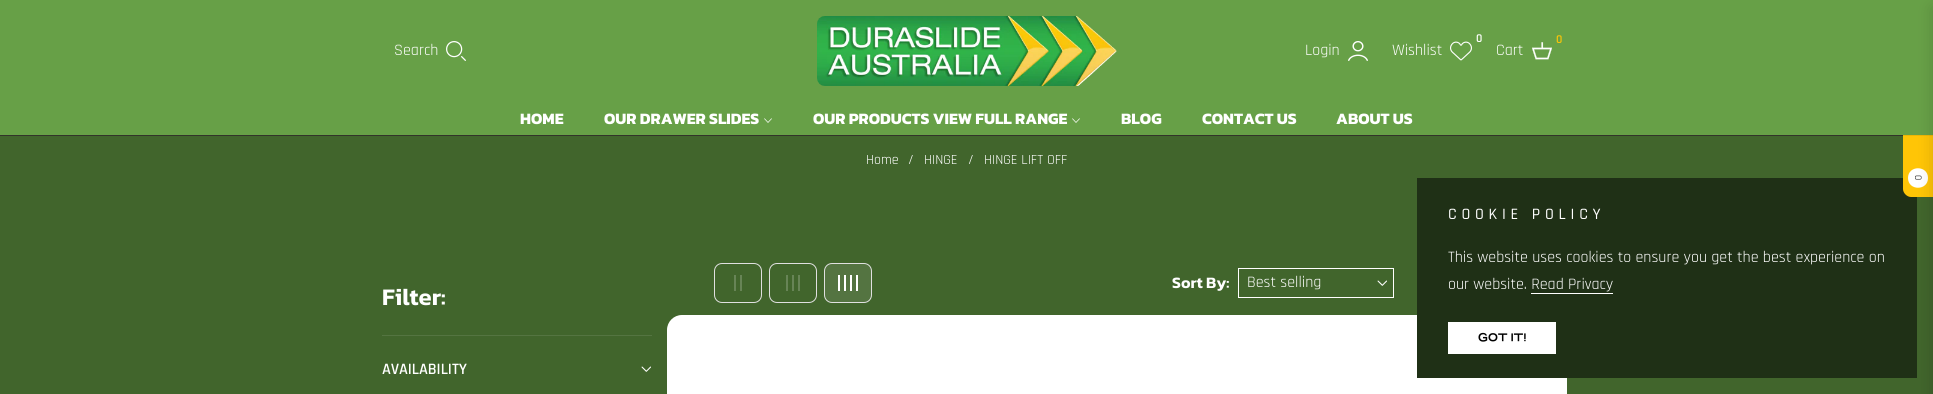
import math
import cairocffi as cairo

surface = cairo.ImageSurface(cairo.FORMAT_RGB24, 1933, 394)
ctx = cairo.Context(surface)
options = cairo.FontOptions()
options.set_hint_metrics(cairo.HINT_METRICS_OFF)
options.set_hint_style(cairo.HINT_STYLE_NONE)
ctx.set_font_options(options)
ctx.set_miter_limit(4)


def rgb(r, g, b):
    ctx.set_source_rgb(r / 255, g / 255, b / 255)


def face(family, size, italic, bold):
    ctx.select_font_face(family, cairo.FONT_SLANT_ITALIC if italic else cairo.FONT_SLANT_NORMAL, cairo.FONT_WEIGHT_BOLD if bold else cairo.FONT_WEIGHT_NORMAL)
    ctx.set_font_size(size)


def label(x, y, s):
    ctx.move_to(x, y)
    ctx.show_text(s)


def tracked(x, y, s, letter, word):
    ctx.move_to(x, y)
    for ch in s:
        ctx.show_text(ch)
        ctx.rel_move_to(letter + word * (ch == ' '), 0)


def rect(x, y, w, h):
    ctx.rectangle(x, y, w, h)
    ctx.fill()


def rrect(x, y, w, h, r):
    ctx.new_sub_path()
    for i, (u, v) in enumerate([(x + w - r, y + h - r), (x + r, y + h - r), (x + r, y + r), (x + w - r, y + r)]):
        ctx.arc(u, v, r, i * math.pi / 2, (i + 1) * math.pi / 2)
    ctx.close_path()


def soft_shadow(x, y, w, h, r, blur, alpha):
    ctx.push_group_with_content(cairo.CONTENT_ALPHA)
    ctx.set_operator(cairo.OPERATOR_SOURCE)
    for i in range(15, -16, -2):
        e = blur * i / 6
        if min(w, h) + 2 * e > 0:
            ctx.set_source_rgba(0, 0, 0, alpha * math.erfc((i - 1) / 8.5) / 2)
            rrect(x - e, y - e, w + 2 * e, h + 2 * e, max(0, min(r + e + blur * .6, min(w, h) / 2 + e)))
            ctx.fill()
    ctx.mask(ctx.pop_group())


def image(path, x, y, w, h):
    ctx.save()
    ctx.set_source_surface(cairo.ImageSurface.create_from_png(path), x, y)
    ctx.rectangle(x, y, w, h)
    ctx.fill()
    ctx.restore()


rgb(65, 101, 44)
ctx.paint()
rgb(255, 255, 255)
rrect(667, 315, 900, 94, 15)
ctx.fill()
rgb(31, 48, 22)
rect(1417, 178, 500, 200)
rgb(255, 197, 6)
ctx.new_path()
ctx.move_to(1933, 93)
ctx.line_to(1933, 197)
ctx.line_to(1911, 197)
ctx.curve_to(1907, 197, 1903, 193, 1903, 189)
ctx.line_to(1903, 101)
ctx.curve_to(1903, 97, 1907, 93, 1911, 93)
ctx.close_path()
ctx.fill()
rgb(54, 56, 45)
rect(0, 135, 1903, 1)
rgb(0, 0, 0)
soft_shadow(0, 0, 1933, 135, 0, 0.5, 0.3)
rgb(103, 160, 71)
rect(0, 0, 1933, 135)
face('Rajdhani', 16, 0, 0)
rgb(255, 255, 255)
label(394, 55, 'Search')
image('image0.png', 446, 41, 20, 20)
image('image1.png', 817, 16, 300, 70)
label(1305, 55, 'Login')
image('image2.png', 1348, 41, 20, 20)
face('Rajdhani SemiBold', 12, 0, 0)
label(1476, 42, '0')
face('Rajdhani', 16, 0, 0)
label(1392, 55, 'Wishlist')
image('image3.png', 1450, 41, 22, 20)
face('Rajdhani SemiBold', 12, 0, 0)
rgb(250, 196, 8)
label(1556, 43, '0')
face('Rajdhani', 16, 0, 0)
rgb(255, 255, 255)
label(1496, 55, 'Cart')
image('image4.png', 1532, 42, 20, 18)
ctx.new_path()
ctx.move_to(1928, 178)
ctx.curve_to(1928, 191, 1908, 191, 1908, 178)
ctx.curve_to(1908, 165, 1928, 165, 1928, 178)
ctx.close_path()
ctx.fill()
rgb(0, 0, 0)
soft_shadow(1933, 8, 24, 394, 0, 8, 0.15)
face('Kanit', 16, 0, 1)
rgb(255, 255, 255)
label(520, 124, 'HOME')
label(604, 124, 'OUR DRAWER SLIDES')
image('image5.png', 764, 118, 8, 5)
label(813, 124, 'OUR PRODUCTS VIEW FULL RANGE')
image('image5.png', 1072, 118, 8, 5)
label(1121, 124, 'BLOG')
label(1202, 124, 'CONTACT US')
label(1336, 124, 'ABOUT US')
face('Rajdhani', 10, 0, 0)
rgb(0, 0, 0)
ctx.save()
ctx.translate(1915, 175)
ctx.rotate(90 * math.pi / 180)
label(0, 0, '0')
ctx.restore()
face('Rajdhani', 14, 0, 0)
rgb(255, 255, 255)
label(866, 164, 'Home')
label(908, 164, '/')
label(924, 164, 'HINGE')
label(968, 164, '/')
label(984, 164, 'HINGE LIFT OFF')
rrect(714.5, 263.5, 47, 39, 7.5)
rgb(224, 224, 224)
ctx.set_line_width(1)
ctx.stroke()
rgb(103, 132, 86)
rect(740, 275, 2, 16)
rect(734, 275, 2, 16)
rrect(769.5, 263.5, 47, 39, 7.5)
rgb(224, 224, 224)
ctx.stroke()
rgb(103, 132, 86)
rect(798, 275, 2, 16)
rect(792, 275, 2, 16)
rect(786, 275, 2, 16)
rgb(84, 116, 65)
rrect(824.5, 263.5, 47, 39, 7.5)
ctx.fill_preserve()
rgb(224, 224, 224)
ctx.stroke()
rgb(255, 255, 255)
rect(856, 275, 2, 16)
rect(850, 275, 2, 16)
rect(844, 275, 2, 16)
rect(838, 275, 2, 16)
face('Kanit SemiBold', 16, 0, 0)
label(1172, 288, 'Sort By:')
ctx.rectangle(1238.5, 268.5, 155, 29)
ctx.stroke()
face('Rajdhani', 16, 0, 0)
label(1247, 287, 'Best selling')
image('image6.png', 1377, 280, 10, 6)
face('Kanit SemiBold', 24, 0, 0)
label(382, 305, 'Filter:')
rgb(84, 116, 65)
rect(382, 335, 270, 1)
face('Rajdhani SemiBold', 16, 0, 0)
rgb(255, 255, 255)
label(382, 374, 'AVAILABILITY')
image('image6.png', 641, 366, 10, 6)
face('Rajdhani Medium', 16, 0, 0)
tracked(1448, 219, 'COOKIE POLICY', 4.75, 0)
face('Rajdhani', 16, 0, 0)
label(1448, 262, 'This website uses cookies to ensure you get the best experience on')
label(1448, 289, 'our website. Read Privacy')
rect(1531, 293, 82, 1)
rect(1448, 322, 108, 32)
face('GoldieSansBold', 12, 0, 1)
rgb(0, 0, 0)
label(1478, 343, 'GOT IT!')
surface.write_to_png('render.png')
